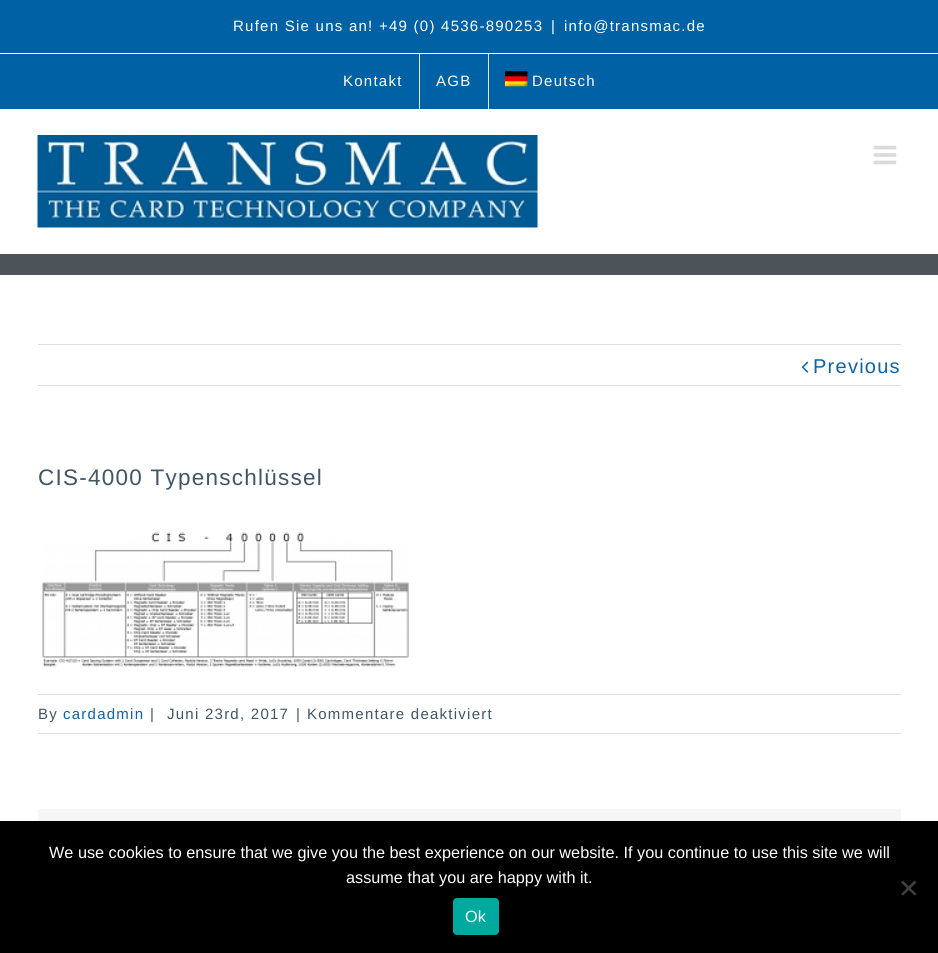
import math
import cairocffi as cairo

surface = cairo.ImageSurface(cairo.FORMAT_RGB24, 938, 953)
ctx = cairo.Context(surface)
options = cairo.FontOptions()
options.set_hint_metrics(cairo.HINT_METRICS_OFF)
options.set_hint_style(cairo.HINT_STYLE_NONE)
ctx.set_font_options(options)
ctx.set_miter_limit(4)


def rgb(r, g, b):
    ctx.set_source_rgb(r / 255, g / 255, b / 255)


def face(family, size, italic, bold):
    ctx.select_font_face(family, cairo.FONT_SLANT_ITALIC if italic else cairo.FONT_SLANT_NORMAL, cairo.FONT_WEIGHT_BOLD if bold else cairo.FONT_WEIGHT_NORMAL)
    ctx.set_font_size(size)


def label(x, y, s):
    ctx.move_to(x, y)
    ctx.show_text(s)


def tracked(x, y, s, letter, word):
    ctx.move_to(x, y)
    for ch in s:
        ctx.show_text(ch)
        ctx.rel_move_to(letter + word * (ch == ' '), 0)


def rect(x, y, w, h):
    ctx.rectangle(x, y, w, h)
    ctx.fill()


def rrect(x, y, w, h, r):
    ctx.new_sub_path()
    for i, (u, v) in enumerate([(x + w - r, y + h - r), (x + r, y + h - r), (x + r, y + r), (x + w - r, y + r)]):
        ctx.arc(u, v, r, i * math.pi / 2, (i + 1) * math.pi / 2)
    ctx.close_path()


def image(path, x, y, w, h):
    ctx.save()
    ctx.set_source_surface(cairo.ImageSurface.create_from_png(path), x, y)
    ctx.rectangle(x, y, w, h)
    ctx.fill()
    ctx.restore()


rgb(255, 255, 255)
ctx.paint()
rgb(0, 97, 165)
rect(0, 0, 938, 109)
rgb(255, 255, 255)
rect(0, 53, 938, 1)
face('Liberation Sans', 15, 0, 0)
tracked(233, 31, 'Rufen Sie uns an! +49 (0) 4536-890253', 1.25, 0)
tracked(551, 31, '|', 1.25, 0)
tracked(564, 31, 'info@transmac.de', 1.25, 0)
tracked(343, 86, 'Kontakt', 1.25, 0)
rgb(229, 229, 229)
rect(419, 54, 1, 55)
rgb(255, 255, 255)
tracked(436, 86, 'AGB', 1.25, 0)
rgb(229, 229, 229)
rect(488, 54, 1, 55)
image('image0.png', 505, 71, 23, 16)
rgb(255, 255, 255)
tracked(532, 86, 'Deutsch', 1.25, 0)
image('image1.png', 37, 135, 501, 93)
image('image2.png', 873, 145, 24, 20)
rgb(76, 84, 89)
rect(0, 254, 938, 21)
rgb(224, 222, 222)
rect(38, 344, 863, 1)
rect(38, 385, 863, 1)
image('image3.png', 801, 361, 8, 12)
face('Liberation Sans', 20, 0, 0)
rgb(14, 98, 166)
tracked(813, 373, 'Previous', 1.25, 0)
face('Liberation Sans', 22.5, 0, 0)
rgb(63, 86, 102)
tracked(38, 485, 'CIS-4000 Typenschlüssel', 1.25, 0)
image('image4.png', 42, 532, 367, 135)
rgb(224, 222, 222)
rect(38, 694, 863, 1)
rect(38, 733, 863, 1)
face('Liberation Sans', 15, 0, 0)
rgb(63, 86, 102)
tracked(38, 719, 'By', 1.25, 0)
rgb(14, 98, 166)
tracked(63, 719, 'cardadmin', 1.25, 0)
rgb(63, 86, 102)
tracked(150, 719, '|', 1.25, 0)
tracked(167, 719, 'Juni 23rd, 2017', 1.25, 0)
tracked(296, 719, '|', 1.25, 0)
tracked(307, 719, 'Kommentare deaktiviert', 1.25, 0)
rgb(246, 246, 246)
rect(38, 809, 863, 12)
rgb(0, 0, 0)
rect(0, 821, 938, 132)
face('Liberation Sans', 16.25, 0, 0)
rgb(255, 255, 255)
label(49, 858, 'We use cookies to ensure that we give you the best experience on our website. If you continue to use this site we will')
label(346, 883, 'assume that you are happy with it.')
rgb(64, 64, 64)
ctx.new_path()
ctx.move_to(914.5, 880.5)
ctx.line_to(916.5, 882.5)
ctx.line_to(903, 895.5)
ctx.line_to(901, 894)
ctx.close_path()
ctx.fill()
ctx.new_path()
ctx.move_to(901, 882.5)
ctx.line_to(903, 880.5)
ctx.line_to(916.5, 894)
ctx.line_to(914.5, 895.5)
ctx.close_path()
ctx.fill()
rgb(0, 169, 157)
rrect(453, 898, 46, 37, 4)
ctx.fill()
rgb(255, 255, 255)
label(465, 922, 'Ok')
surface.write_to_png('render.png')
